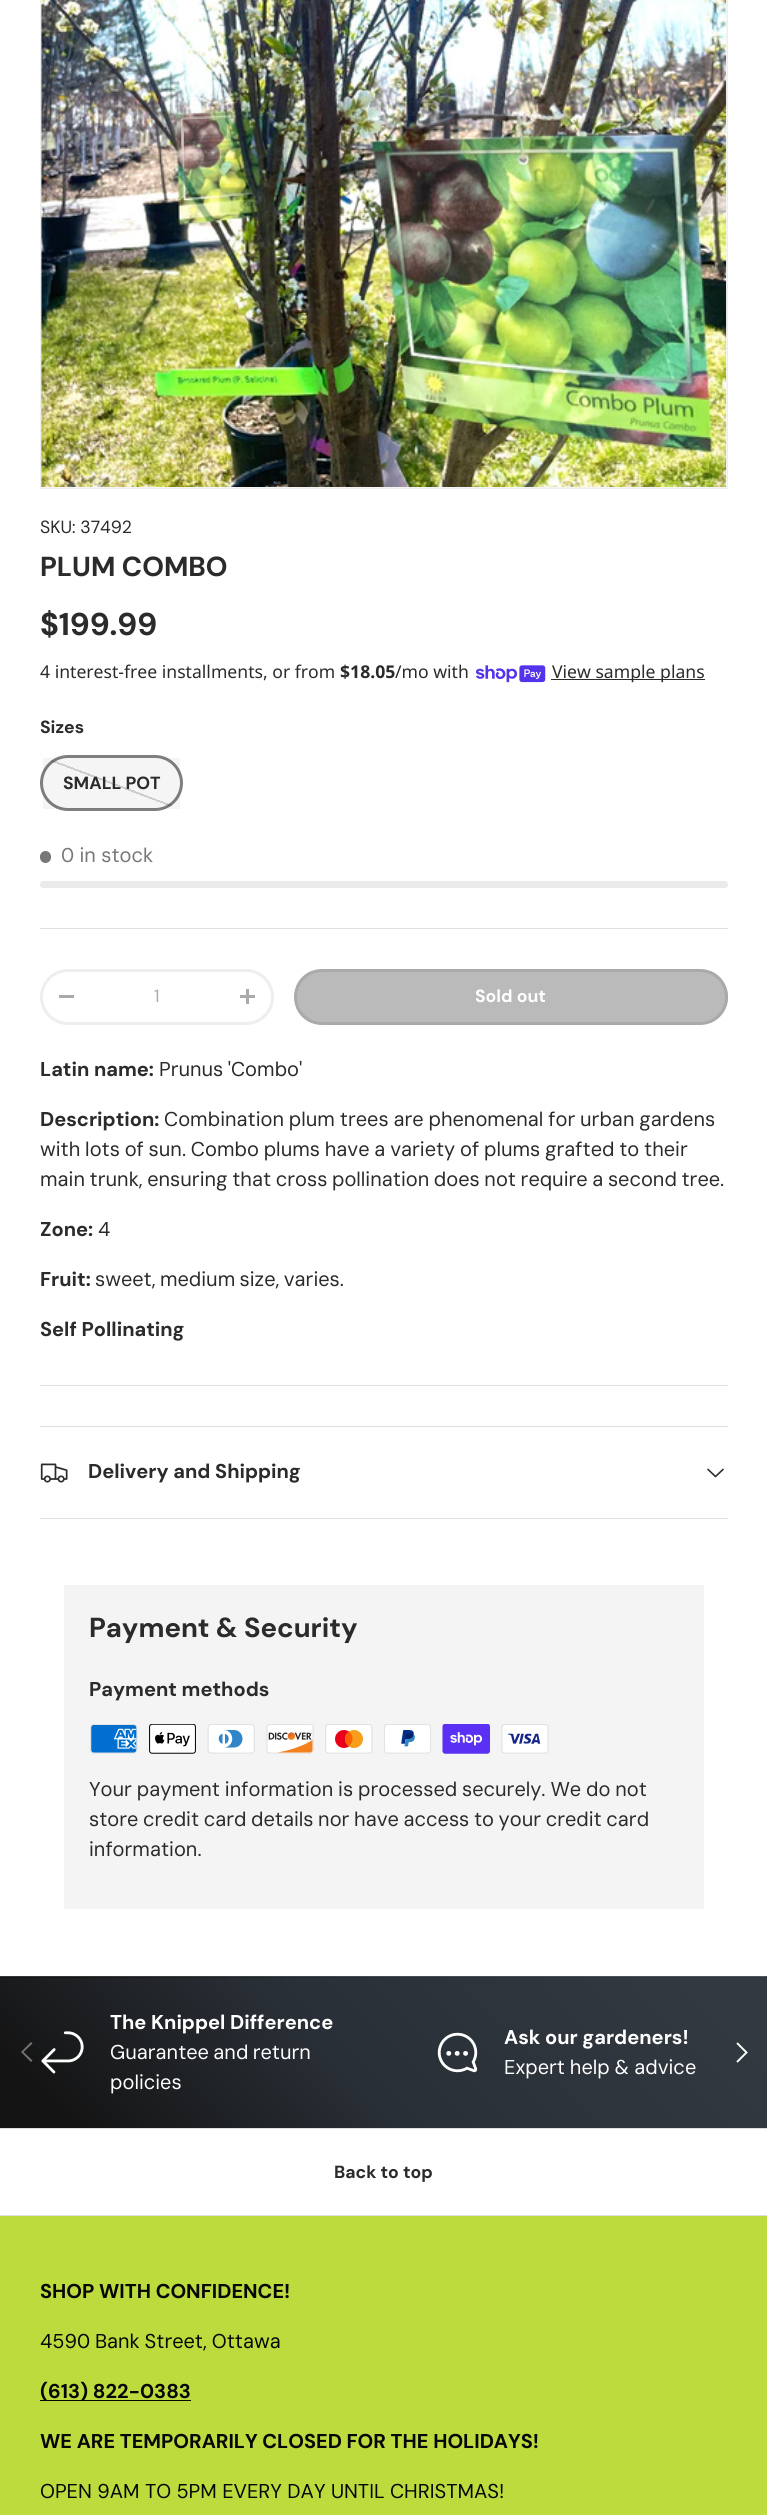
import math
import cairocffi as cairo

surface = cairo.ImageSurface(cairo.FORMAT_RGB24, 767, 2515)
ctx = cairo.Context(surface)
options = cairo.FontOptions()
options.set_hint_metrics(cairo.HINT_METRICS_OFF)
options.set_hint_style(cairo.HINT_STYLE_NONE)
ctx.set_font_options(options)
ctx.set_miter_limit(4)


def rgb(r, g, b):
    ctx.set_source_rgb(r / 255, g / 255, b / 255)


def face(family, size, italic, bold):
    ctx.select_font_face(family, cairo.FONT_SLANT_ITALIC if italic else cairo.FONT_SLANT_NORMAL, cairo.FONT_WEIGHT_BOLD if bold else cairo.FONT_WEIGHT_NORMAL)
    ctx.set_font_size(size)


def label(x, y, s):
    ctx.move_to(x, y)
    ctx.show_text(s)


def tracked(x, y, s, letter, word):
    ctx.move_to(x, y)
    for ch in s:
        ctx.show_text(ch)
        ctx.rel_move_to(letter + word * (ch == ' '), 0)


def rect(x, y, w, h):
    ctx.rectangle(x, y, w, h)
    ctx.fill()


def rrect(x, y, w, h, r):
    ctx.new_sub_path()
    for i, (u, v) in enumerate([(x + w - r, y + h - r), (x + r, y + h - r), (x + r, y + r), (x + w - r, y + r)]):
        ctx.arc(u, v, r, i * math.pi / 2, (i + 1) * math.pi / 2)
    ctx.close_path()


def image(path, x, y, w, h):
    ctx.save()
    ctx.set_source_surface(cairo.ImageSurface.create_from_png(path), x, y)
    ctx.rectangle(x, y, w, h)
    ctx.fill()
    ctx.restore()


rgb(255, 255, 255)
ctx.paint()
rgb(244, 244, 244)
ctx.rectangle(40.5, -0.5, 687, 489)
ctx.fill_preserve()
rgb(238, 238, 238)
ctx.set_line_width(1)
ctx.stroke()
image('image0.png', 41, 0, 686, 487)
face('DM Sans', 17.6, 0, 0)
rgb(42, 43, 42)
label(40, 533, 'SKU: 37492')
face('DM Sans', 27.5, 0, 1)
label(40, 576, 'PLUM COMBO')
face('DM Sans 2', 31.5, 0, 1)
label(40, 635, '$199.99')
face('Noto Sans', 17.6, 0, 0)
label(40, 678, '4 interest-free installments, or from')
face('Noto Sans', 17.6, 0, 1)
label(340, 678, '$18.05')
face('Noto Sans', 17.6, 0, 0)
label(395, 678, '/mo with')
image('image1.png', 476, 665, 70, 18)
rect(551, 679, 154, 1)
label(552, 678, 'View sample plans')
face('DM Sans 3', 17.6, 0, 1)
label(40, 733, 'Sizes')
ctx.save()
rrect(40, 755, 143, 56, 28)
ctx.clip()
gradient = cairo.LinearGradient(128, 738, 94, 828)
gradient.add_color_stop_rgba(0.49, 1, 1, 1, 1)
gradient.add_color_stop_rgba(0.49, 0.831, 0.835, 0.831, 1)
gradient.add_color_stop_rgba(0.51, 0.831, 0.835, 0.831, 1)
gradient.add_color_stop_rgba(0.51, 1, 1, 1, 1)
ctx.set_source(gradient)
rect(43, 758, 137, 51)
ctx.restore()
rrect(41.5, 756.5, 140, 53, 26.5)
ctx.set_source_rgba(0.165, 0.169, 0.165, 0.6)
ctx.set_line_width(3)
ctx.stroke()
ctx.set_source_rgba(0.165, 0.169, 0.165, 0.05)
rect(43, 758, 137, 51)
rgb(42, 43, 42)
label(63, 789, 'SMALL POT')
rgb(119, 119, 119)
rrect(40, 851, 11, 12, 5.5)
ctx.fill()
face('DM Sans 2', 20, 0, 0)
label(61, 862, '0 in stock')
rgb(234, 234, 234)
rrect(40, 881, 688, 7, 3.5)
ctx.fill()
rgb(223, 223, 223)
rect(40, 928, 688, 1)
rrect(41.5, 970.5, 231, 53, 26.5)
rgb(238, 238, 238)
ctx.stroke()
rgb(170, 170, 170)
rect(59, 995, 15, 3)
face('DM Sans', 17.6, 0, 0)
label(154, 1002, '1')
rect(240, 995, 15, 3)
rect(246, 989, 3, 15)
ctx.save()
rrect(294, 969, 434, 56, 28)
ctx.clip()
gradient = cairo.LinearGradient(328, 844, 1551, 1149)
gradient.add_color_stop_rgba(0.6, 0.729, 0.729, 0.729, 1)
gradient.add_color_stop_rgba(0.6, 0.667, 0.667, 0.667, 1)
gradient.add_color_stop_rgba(1, 0.667, 0.667, 0.667, 1)
ctx.set_source(gradient)
rect(296, 971, 432, 52)
ctx.restore()
rrect(295.5, 970.5, 431, 53, 26.5)
ctx.stroke()
face('DM Sans 3', 17.6, 0, 1)
rgb(255, 255, 255)
label(475, 1002, 'Sold out')
face('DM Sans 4', 20, 0, 1)
rgb(42, 43, 42)
label(40, 1076, 'Latin name:')
face('DM Sans 2', 20, 0, 0)
tracked(159, 1076, 'Prunus \'Combo\'', 0, -1)
face('DM Sans 4', 20, 0, 1)
label(40, 1126, 'Description:')
face('DM Sans 2', 20, 0, 0)
tracked(164, 1126, 'Combination plum trees are phenomenal for urban gardens', 0, -0.5)
tracked(40, 1156, 'with lots of sun. Combo plums have a variety of plums grafted to their', 0, -0.6)
tracked(40, 1186, 'main trunk, ensuring that cross pollination does not require a second tree.', 0, -0.75)
face('DM Sans 4', 20, 0, 1)
label(40, 1236, 'Zone:')
face('DM Sans 2', 20, 0, 0)
label(98, 1236, '4')
face('DM Sans 4', 20, 0, 1)
label(40, 1286, 'Fruit:')
face('DM Sans 2', 20, 0, 0)
tracked(95, 1286, 'sweet, medium size, varies.', 0, -1)
face('DM Sans 4', 20, 0, 1)
label(40, 1336, 'Self Pollinating')
rgb(223, 223, 223)
rect(40, 1385, 688, 1)
rect(40, 1426, 688, 1)
rect(40, 1518, 688, 1)
image('image2.png', 40, 1463, 28, 20)
rgb(42, 43, 42)
label(88, 1478, 'Delivery and Shipping')
ctx.new_path()
ctx.move_to(723.5, 1469)
ctx.line_to(715.5, 1476.5)
ctx.line_to(707.5, 1469)
ctx.set_line_width(1.6)
ctx.stroke()
rgb(244, 244, 244)
rect(64, 1585, 640, 324)
face('DM Sans', 27.5, 0, 1)
rgb(42, 43, 42)
label(89, 1637, 'Payment & Security')
face('DM Sans 4', 20, 0, 1)
label(89, 1696, 'Payment methods')
image('image3.png', 90, 1724, 48, 30)
image('image4.png', 149, 1724, 47, 30)
image('image5.png', 207, 1724, 48, 30)
image('image6.png', 266, 1724, 48, 30)
image('image7.png', 325, 1724, 48, 30)
image('image8.png', 384, 1724, 47, 30)
image('image9.png', 442, 1724, 48, 30)
image('image10.png', 501, 1724, 48, 30)
face('DM Sans 2', 20, 0, 0)
tracked(89, 1796, 'Your payment information is processed securely. We do not', 0, -0.5)
tracked(89, 1826, 'store credit card details nor have access to your credit card', 0, -0.75)
label(89, 1856, 'information.')
gradient = cairo.LinearGradient(613, 1673, 154, 2132)
gradient.add_color_stop_rgba(0.08, 0.196, 0.224, 0.251, 1)
gradient.add_color_stop_rgba(0.56, 0.161, 0.184, 0.212, 1)
gradient.add_color_stop_rgba(0.92, 0.078, 0.078, 0.078, 1)
ctx.set_source(gradient)
rect(0, 1977, 767, 1)
gradient = cairo.LinearGradient(613, 1673, 154, 2132)
gradient.add_color_stop_rgba(0.08, 0.318, 0.341, 0.365, 1)
gradient.add_color_stop_rgba(0.56, 0.286, 0.306, 0.329, 1)
gradient.add_color_stop_rgba(0.92, 0.216, 0.216, 0.216, 1)
ctx.set_source(gradient)
rect(0, 1976, 767, 1)
gradient = cairo.LinearGradient(613, 1823, 154, 2282)
gradient.add_color_stop_rgba(0.08, 0.196, 0.224, 0.251, 1)
gradient.add_color_stop_rgba(0.56, 0.161, 0.184, 0.212, 1)
gradient.add_color_stop_rgba(0.92, 0.078, 0.078, 0.078, 1)
ctx.set_source(gradient)
rect(0, 1978, 767, 150)
image('image11.png', 41, 2031, 43, 43)
face('DM Sans 4', 20, 0, 1)
rgb(255, 255, 255)
label(110, 2029, 'The Knippel Difference')
face('DM Sans 2', 20, 0, 0)
tracked(110, 2059, 'Guarantee and return', 0, -1)
label(110, 2089, 'policies')
image('image12.png', 437, 2032, 41, 41)
face('DM Sans 4', 20, 0, 1)
label(504, 2044, 'Ask our gardeners!')
face('DM Sans 2', 20, 0, 0)
tracked(504, 2074, 'Expert help & advice', 0, -0.5)
rgb(115, 115, 116)
ctx.new_path()
ctx.move_to(21, 2052)
ctx.line_to(31, 2042)
ctx.line_to(32.5, 2043.5)
ctx.line_to(23.5, 2052)
ctx.line_to(32.5, 2060.5)
ctx.line_to(31, 2062)
ctx.close_path()
ctx.fill()
ctx.new_path()
ctx.move_to(737, 2043)
ctx.line_to(746.5, 2052.5)
ctx.line_to(737, 2062)
rgb(255, 255, 255)
ctx.set_line_width(1.9)
ctx.stroke()
rgb(223, 223, 223)
rect(0, 2128, 767, 1)
rect(0, 2215, 767, 1)
face('DM Sans 3', 17.6, 0, 1)
rgb(42, 43, 42)
label(334, 2178, 'Back to top')
rgb(188, 220, 62)
rect(0, 2216, 767, 299)
face('DM Sans 4', 20, 0, 1)
rgb(7, 7, 7)
label(40, 2298, 'SHOP WITH CONFIDENCE!')
face('DM Sans 2', 20, 0, 0)
tracked(40, 2348, '4590 Bank Street, Ottawa', 0, -0.5)
rect(40, 2400, 151, 1)
face('DM Sans 4', 20, 0, 1)
label(40, 2398, '(613) 822-0383')
label(40, 2448, 'WE ARE TEMPORARILY CLOSED FOR THE HOLIDAYS!')
face('DM Sans 2', 20, 0, 0)
label(40, 2498, 'OPEN 9AM TO 5PM EVERY DAY UNTIL CHRISTMAS!')
surface.write_to_png('render.png')
